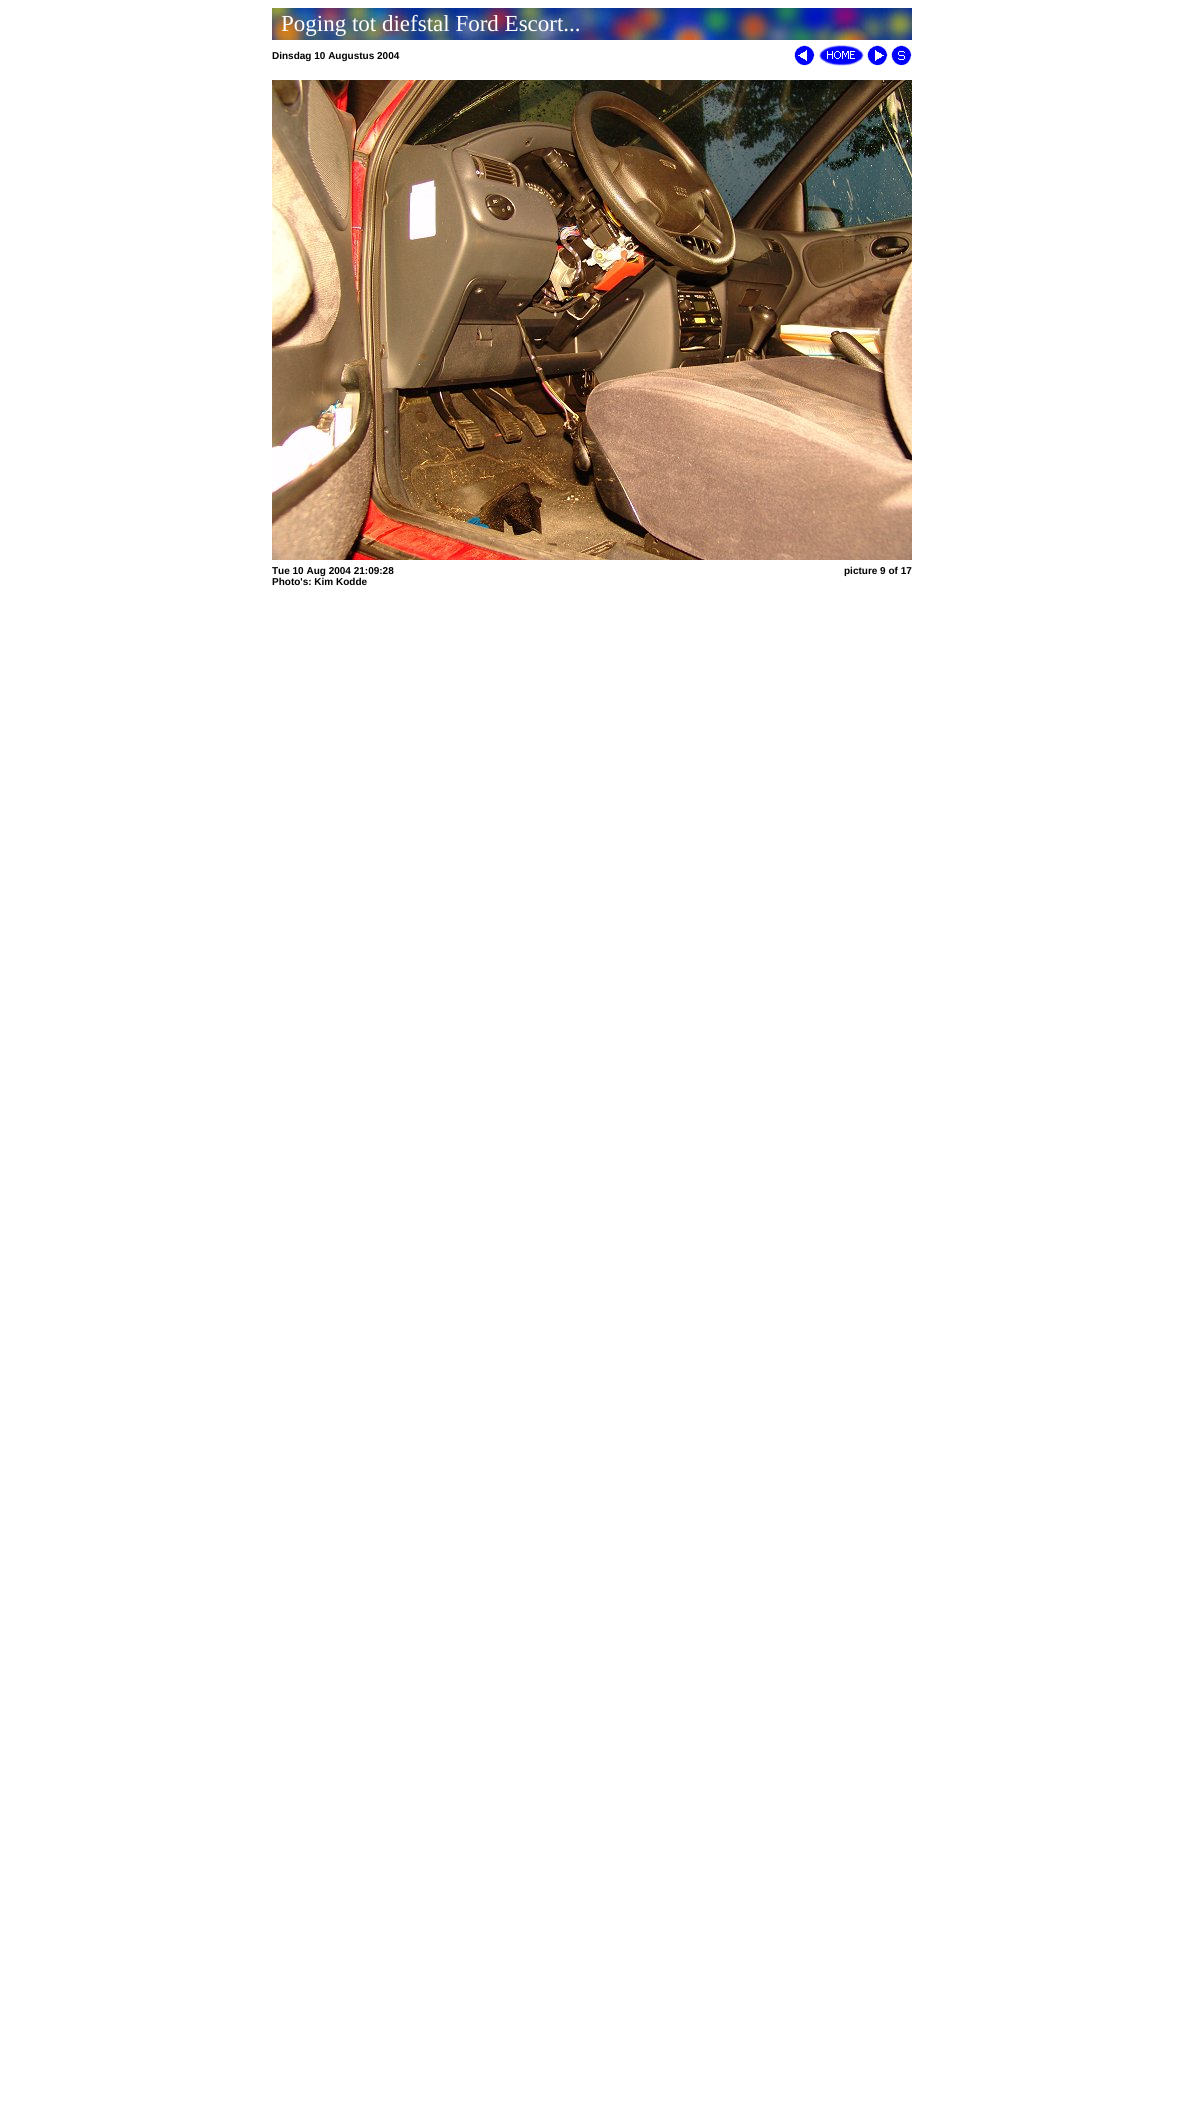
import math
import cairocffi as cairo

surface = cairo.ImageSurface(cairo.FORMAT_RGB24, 1184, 2112)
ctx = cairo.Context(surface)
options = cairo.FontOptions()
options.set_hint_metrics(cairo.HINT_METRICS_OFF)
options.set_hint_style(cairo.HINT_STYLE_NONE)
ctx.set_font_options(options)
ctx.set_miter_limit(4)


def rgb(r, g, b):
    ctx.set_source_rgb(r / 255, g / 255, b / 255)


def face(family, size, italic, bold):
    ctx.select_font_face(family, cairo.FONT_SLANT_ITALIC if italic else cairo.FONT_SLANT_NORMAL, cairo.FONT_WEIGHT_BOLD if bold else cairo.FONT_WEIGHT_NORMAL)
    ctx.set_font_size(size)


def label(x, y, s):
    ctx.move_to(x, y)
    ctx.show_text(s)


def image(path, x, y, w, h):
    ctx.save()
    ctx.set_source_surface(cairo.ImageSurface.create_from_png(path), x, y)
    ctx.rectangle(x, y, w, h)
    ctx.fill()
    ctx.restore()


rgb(255, 255, 255)
ctx.paint()
image('image0.png', 272, 8, 640, 32)
face('Liberation Serif', 23, 0, 0)
rgb(255, 255, 255)
label(281, 31, 'Poging tot diefstal Ford Escort...')
face('Liberation Sans', 10, 0, 1)
rgb(0, 0, 0)
label(272, 59, 'Dinsdag 10 Augustus 2004')
image('image1.png', 794, 45, 21, 21)
image('image2.png', 819, 45, 45, 21)
image('image3.png', 867, 45, 21, 21)
image('image4.png', 891, 45, 21, 21)
image('image5.png', 272, 80, 640, 480)
label(272, 574, 'Tue 10 Aug 2004 21:09:28')
label(844, 574, 'picture 9 of 17')
label(272, 585, 'Photo\'s: Kim Kodde')
surface.write_to_png('render.png')
